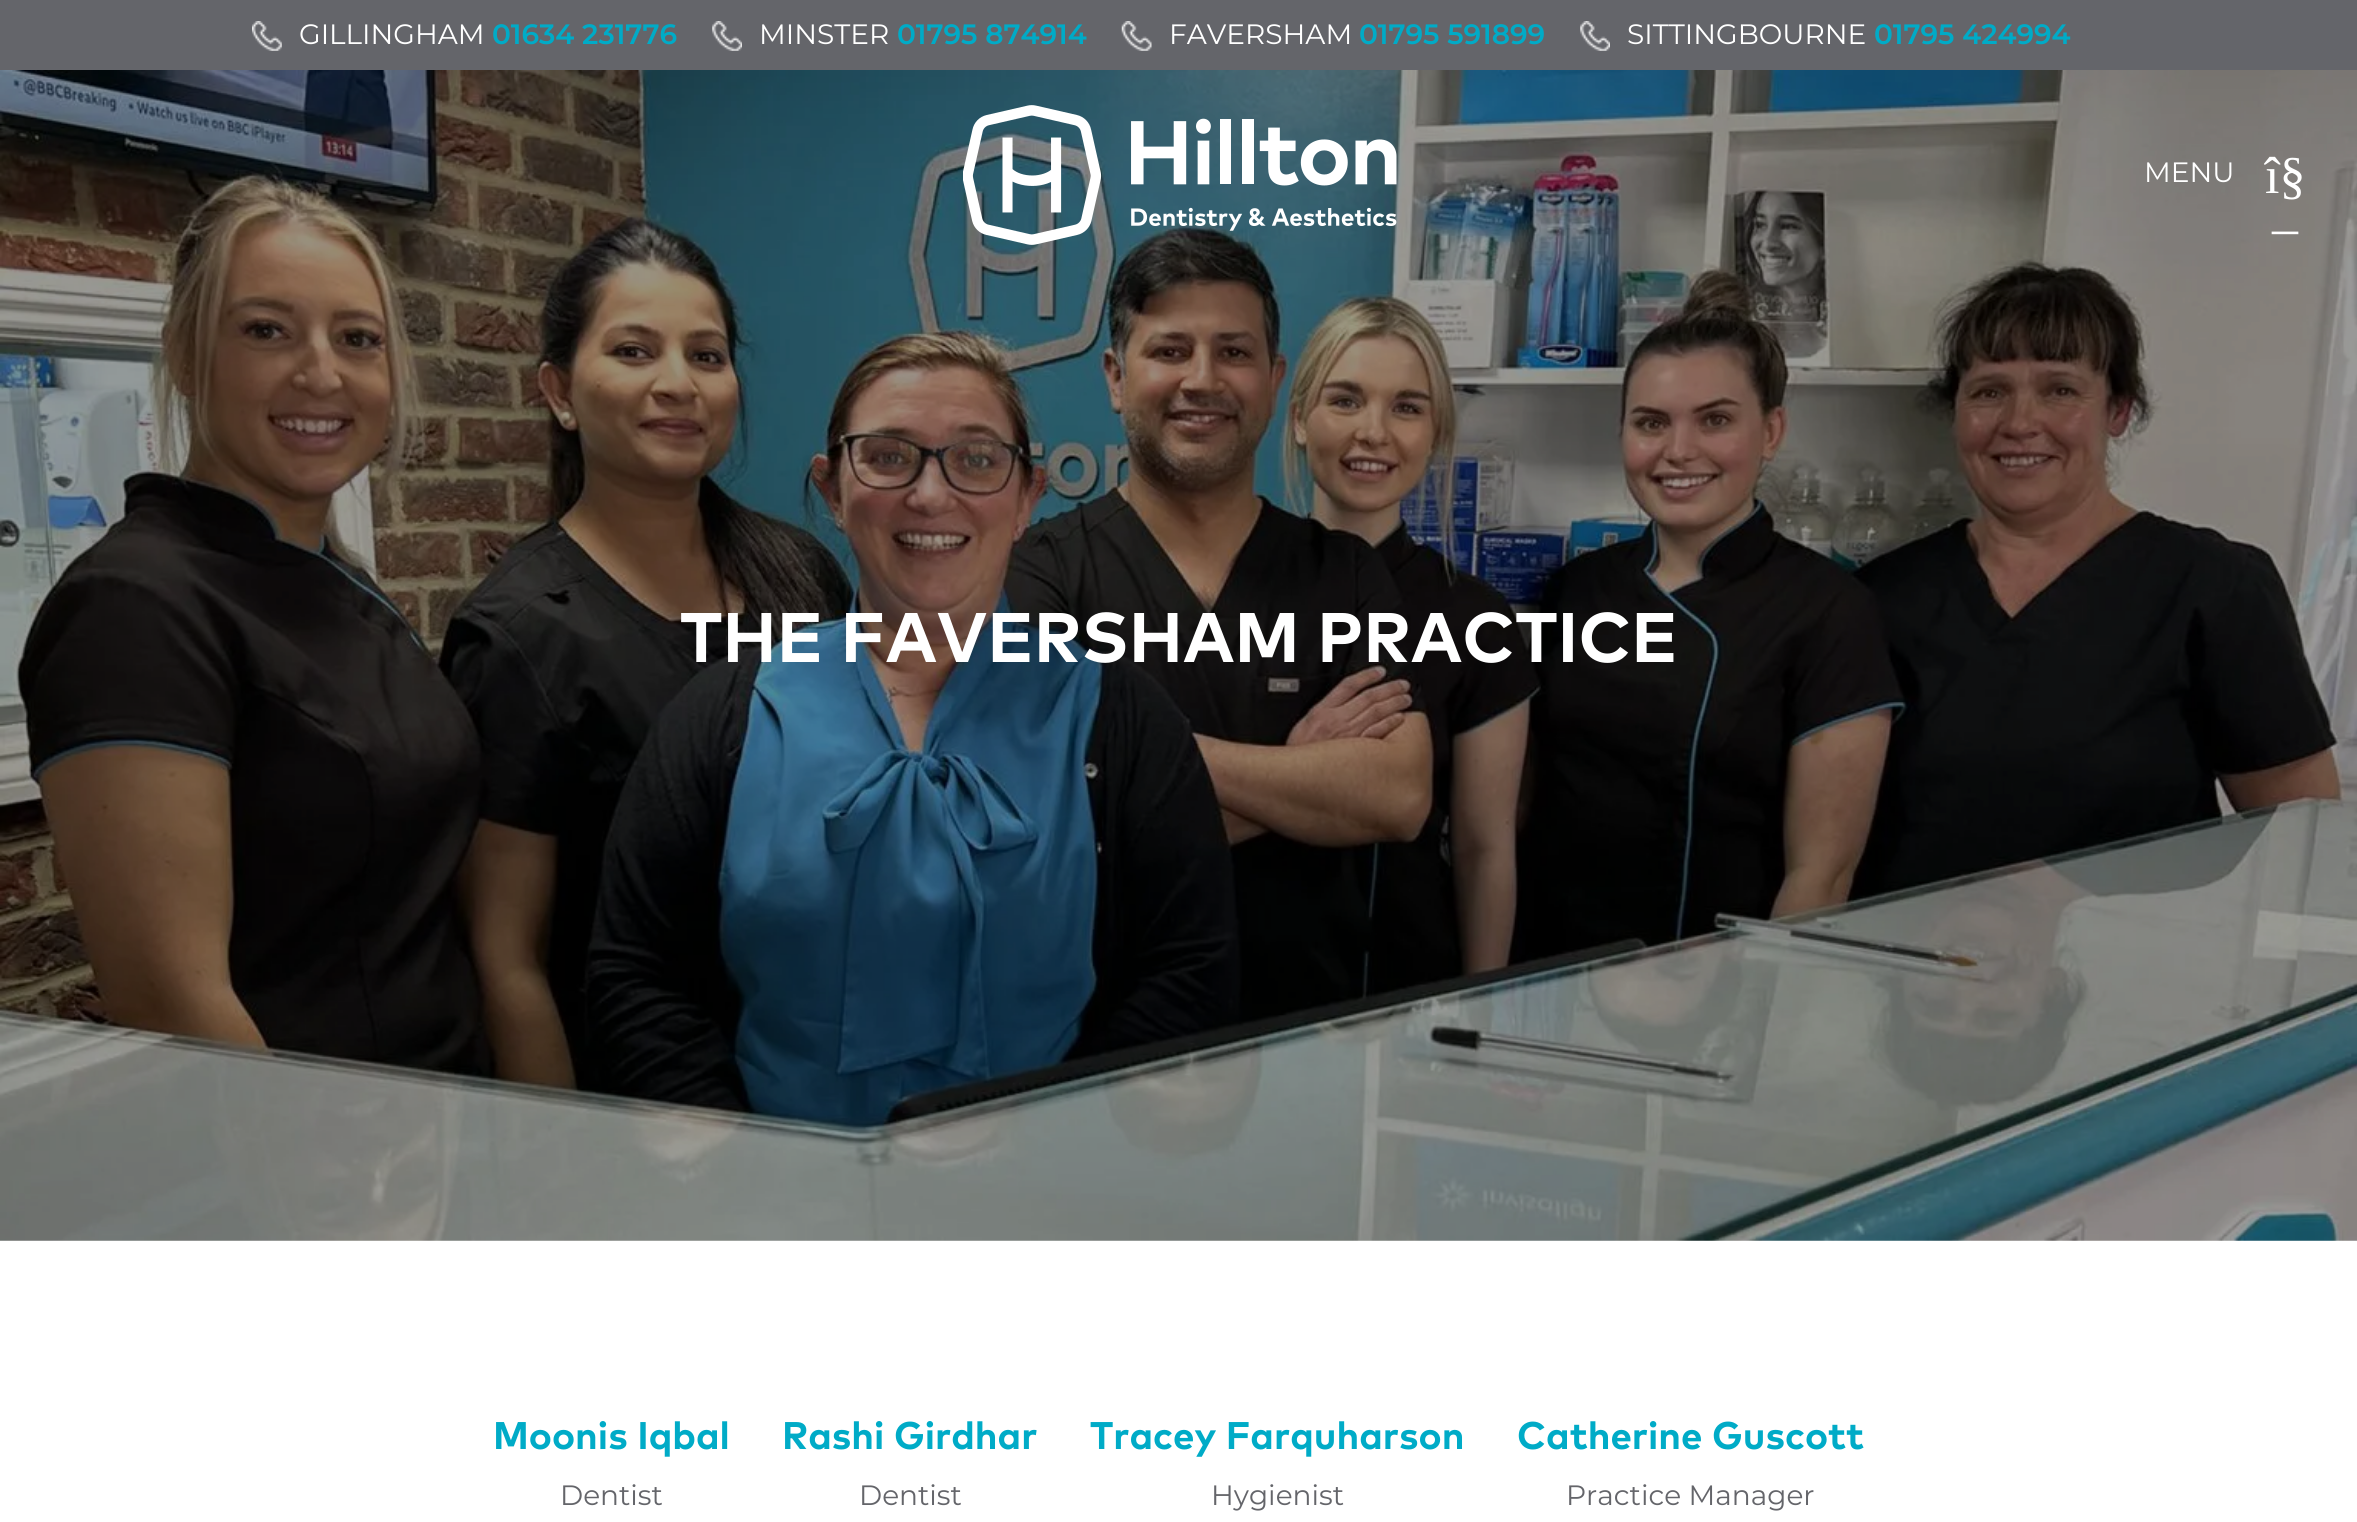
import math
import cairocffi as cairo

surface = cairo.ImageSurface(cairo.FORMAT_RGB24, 2357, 1522)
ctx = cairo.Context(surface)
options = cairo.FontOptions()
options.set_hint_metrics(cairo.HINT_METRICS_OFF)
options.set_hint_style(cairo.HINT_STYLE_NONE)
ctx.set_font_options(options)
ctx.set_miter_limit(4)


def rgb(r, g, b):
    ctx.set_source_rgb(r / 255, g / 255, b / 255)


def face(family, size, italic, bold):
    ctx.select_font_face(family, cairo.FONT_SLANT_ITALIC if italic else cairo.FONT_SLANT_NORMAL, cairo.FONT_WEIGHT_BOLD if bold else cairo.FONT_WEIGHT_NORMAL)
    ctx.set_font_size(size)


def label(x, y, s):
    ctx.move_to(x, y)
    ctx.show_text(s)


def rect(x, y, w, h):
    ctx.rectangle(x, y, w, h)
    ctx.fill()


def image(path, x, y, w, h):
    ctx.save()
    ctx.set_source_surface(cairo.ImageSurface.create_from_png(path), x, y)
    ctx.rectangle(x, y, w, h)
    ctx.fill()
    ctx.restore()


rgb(255, 255, 255)
ctx.paint()
rgb(100, 101, 106)
rect(0, 0, 2357, 70)
image('image0.png', 252, 21, 30, 30)
face('Montserrat', 28, 0, 0)
rgb(255, 255, 255)
label(299, 44, 'GILLINGHAM')
face('Montserrat SemiBold', 28, 0, 0)
rgb(0, 171, 199)
label(492, 44, '01634 231776')
image('image1.png', 712, 21, 30, 30)
face('Montserrat', 28, 0, 0)
rgb(255, 255, 255)
label(759, 44, 'MINSTER')
face('Montserrat SemiBold', 28, 0, 0)
rgb(0, 171, 199)
label(897, 44, '01795 874914')
image('image2.png', 1121, 21, 31, 30)
face('Montserrat', 28, 0, 0)
rgb(255, 255, 255)
label(1169, 44, 'FAVERSHAM')
face('Montserrat SemiBold', 28, 0, 0)
rgb(0, 171, 199)
label(1359, 44, '01795 591899')
image('image1.png', 1580, 21, 30, 30)
face('Montserrat', 28, 0, 0)
rgb(255, 255, 255)
label(1627, 44, 'SITTINGBOURNE')
face('Montserrat SemiBold', 28, 0, 0)
rgb(0, 171, 199)
label(1874, 44, '01795 424994')
image('image4.png', 0, 70, 2357, 1171)
image('image3.png', 963, 105, 434, 140)
face('Montserrat', 28, 0, 0)
rgb(255, 255, 255)
label(2144, 182, 'MENU')
face('Liberation Serif', 52, 0, 0)
label(2265, 193, 'î§')
label(2272, 245, '–')
face('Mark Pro', 70, 0, 1)
label(680, 662, 'THE FAVERSHAM PRACTICE')
face('Mark Pro', 38.5, 0, 1)
rgb(0, 171, 199)
label(493, 1449, 'Moonis Iqbal')
face('Montserrat', 28, 0, 0)
rgb(100, 101, 106)
label(560, 1505, 'Dentist')
face('Mark Pro', 38.5, 0, 1)
rgb(0, 171, 199)
label(782, 1449, 'Rashi Girdhar')
face('Montserrat', 28, 0, 0)
rgb(100, 101, 106)
label(859, 1505, 'Dentist')
face('Mark Pro', 38.5, 0, 1)
rgb(0, 171, 199)
label(1090, 1449, 'Tracey Farquharson')
face('Montserrat', 28, 0, 0)
rgb(100, 101, 106)
label(1211, 1505, 'Hygienist')
face('Mark Pro', 38.5, 0, 1)
rgb(0, 171, 199)
label(1517, 1449, 'Catherine Guscott')
face('Montserrat', 28, 0, 0)
rgb(100, 101, 106)
label(1566, 1505, 'Practice Manager')
surface.write_to_png('render.png')
